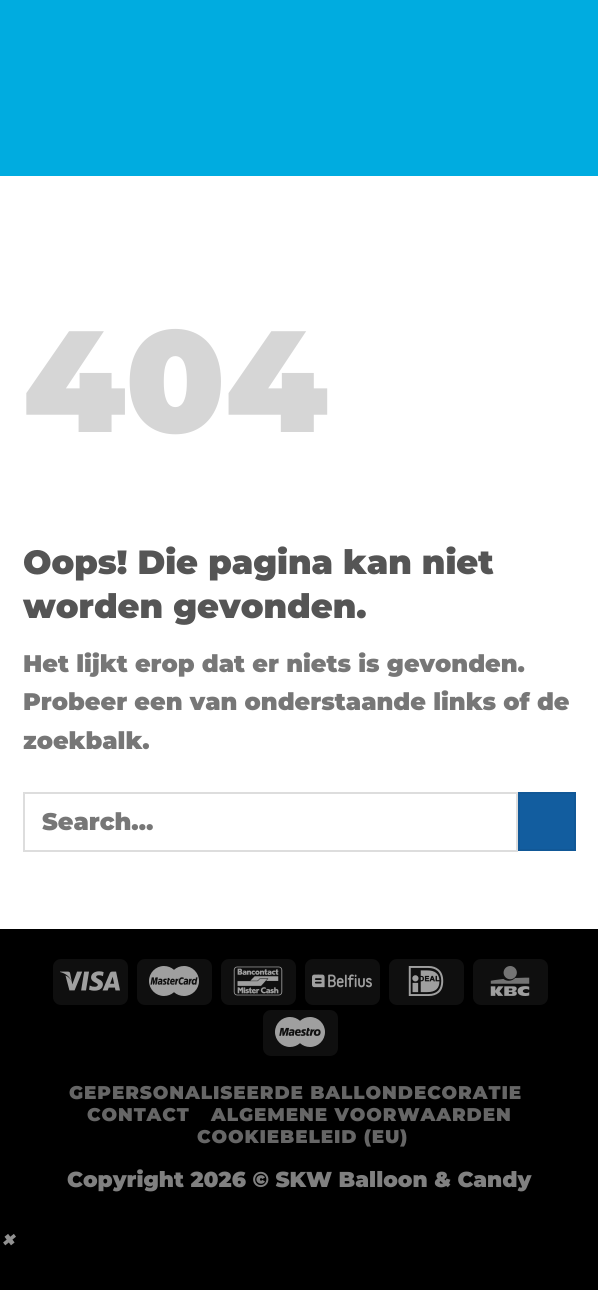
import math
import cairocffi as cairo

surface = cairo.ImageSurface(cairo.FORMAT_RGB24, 598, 1290)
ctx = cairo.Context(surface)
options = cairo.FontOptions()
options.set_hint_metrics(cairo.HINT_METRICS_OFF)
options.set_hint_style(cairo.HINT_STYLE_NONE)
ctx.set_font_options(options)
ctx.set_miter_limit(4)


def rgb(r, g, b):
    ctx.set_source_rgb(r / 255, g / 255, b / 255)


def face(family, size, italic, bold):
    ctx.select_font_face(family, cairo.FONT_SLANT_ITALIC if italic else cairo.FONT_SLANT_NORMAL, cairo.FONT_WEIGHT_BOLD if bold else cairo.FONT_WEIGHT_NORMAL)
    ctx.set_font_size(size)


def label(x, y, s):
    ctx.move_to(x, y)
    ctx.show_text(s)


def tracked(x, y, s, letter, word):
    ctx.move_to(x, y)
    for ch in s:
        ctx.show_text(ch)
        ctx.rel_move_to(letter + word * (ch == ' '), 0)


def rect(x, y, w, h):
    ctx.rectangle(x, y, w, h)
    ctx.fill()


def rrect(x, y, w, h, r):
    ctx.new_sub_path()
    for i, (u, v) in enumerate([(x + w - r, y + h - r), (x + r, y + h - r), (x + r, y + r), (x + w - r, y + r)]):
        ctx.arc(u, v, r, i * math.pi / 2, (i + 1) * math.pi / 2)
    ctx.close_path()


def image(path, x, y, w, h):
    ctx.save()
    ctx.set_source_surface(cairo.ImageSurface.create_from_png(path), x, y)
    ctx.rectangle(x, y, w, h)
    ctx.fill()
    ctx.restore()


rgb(0, 0, 0)
ctx.paint()
rgb(255, 255, 255)
rect(0, 176, 598, 753)
rgb(0, 172, 224)
rect(0, 0, 598, 176)
face('Montserrat Black', 144, 0, 0)
rgb(214, 214, 214)
label(23, 432, '404')
face('Montserrat Black', 33.6, 0, 0)
rgb(85, 85, 85)
label(23, 574, 'Oops! Die pagina kan niet')
label(23, 618, 'worden gevonden.')
face('Montserrat Black', 24, 0, 0)
rgb(119, 119, 119)
label(23, 672, 'Het lijkt erop dat er niets is gevonden.')
label(23, 710, 'Probeer een van onderstaande links of de')
label(23, 749, 'zoekbalk.')
ctx.rectangle(24, 793, 493, 58)
rgb(221, 221, 221)
ctx.stroke()
rgb(119, 119, 119)
label(42, 830, 'Search…')
rgb(18, 93, 159)
ctx.rectangle(519, 793, 56, 57)
ctx.fill_preserve()
rgb(17, 88, 151)
ctx.stroke()
rgb(15, 15, 15)
rrect(53, 959, 75, 46, 8)
ctx.fill()
image('image0.png', 60, 971, 60, 20)
rrect(137, 959, 75, 46, 8)
ctx.fill()
image('image1.png', 149, 966, 50, 30)
rrect(221, 959, 75, 46, 8)
ctx.fill()
image('image2.png', 233, 966, 50, 30)
rrect(305, 959, 75, 46, 8)
ctx.fill()
image('image3.png', 312, 974, 60, 14)
rrect(389, 959, 75, 46, 8)
ctx.fill()
image('image4.png', 408, 966, 36, 30)
rrect(473, 959, 75, 46, 8)
ctx.fill()
image('image5.png', 490, 966, 40, 30)
rrect(263, 1010, 75, 46, 8)
ctx.fill()
image('image6.png', 275, 1017, 50, 30)
face('Montserrat Black', 18.4, 0, 0)
rgb(102, 102, 102)
tracked(69, 1099, 'GEPERSONALISEERDE BALLONDECORATIE', 0.9, 0)
tracked(87, 1121, 'CONTACT', 0.9, 0)
tracked(211, 1121, 'ALGEMENE VOORWAARDEN', 0.9, 0)
tracked(197, 1143, 'COOKIEBELEID (EU)', 0.9, 0)
face('Montserrat Black', 21.6, 0, 0)
rgb(128, 128, 128)
label(67, 1187, 'Copyright 2026 © SKW Balloon & Candy')
face('Montserrat Black', 24, 1, 0)
rgb(145, 145, 145)
label(0, 1248, '×')
surface.write_to_png('render.png')
